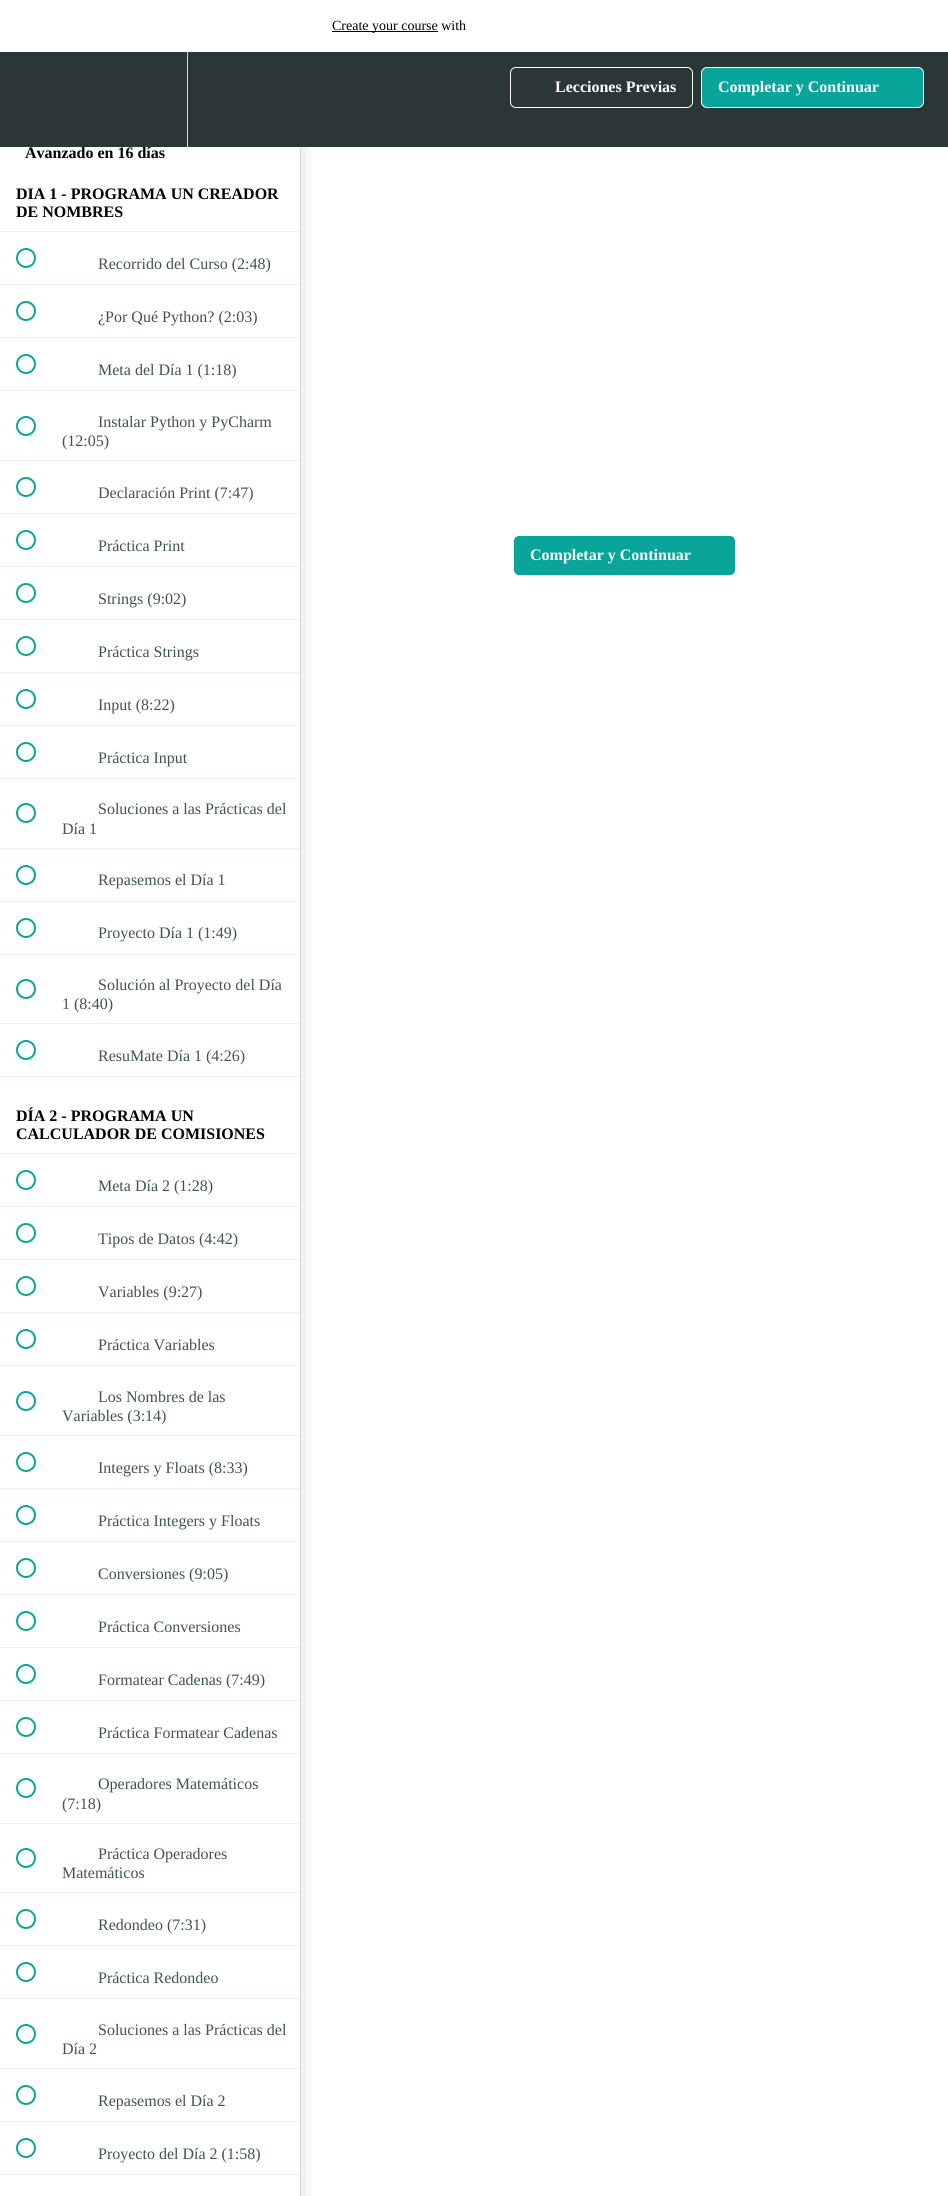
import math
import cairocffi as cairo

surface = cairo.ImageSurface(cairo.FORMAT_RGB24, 948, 2196)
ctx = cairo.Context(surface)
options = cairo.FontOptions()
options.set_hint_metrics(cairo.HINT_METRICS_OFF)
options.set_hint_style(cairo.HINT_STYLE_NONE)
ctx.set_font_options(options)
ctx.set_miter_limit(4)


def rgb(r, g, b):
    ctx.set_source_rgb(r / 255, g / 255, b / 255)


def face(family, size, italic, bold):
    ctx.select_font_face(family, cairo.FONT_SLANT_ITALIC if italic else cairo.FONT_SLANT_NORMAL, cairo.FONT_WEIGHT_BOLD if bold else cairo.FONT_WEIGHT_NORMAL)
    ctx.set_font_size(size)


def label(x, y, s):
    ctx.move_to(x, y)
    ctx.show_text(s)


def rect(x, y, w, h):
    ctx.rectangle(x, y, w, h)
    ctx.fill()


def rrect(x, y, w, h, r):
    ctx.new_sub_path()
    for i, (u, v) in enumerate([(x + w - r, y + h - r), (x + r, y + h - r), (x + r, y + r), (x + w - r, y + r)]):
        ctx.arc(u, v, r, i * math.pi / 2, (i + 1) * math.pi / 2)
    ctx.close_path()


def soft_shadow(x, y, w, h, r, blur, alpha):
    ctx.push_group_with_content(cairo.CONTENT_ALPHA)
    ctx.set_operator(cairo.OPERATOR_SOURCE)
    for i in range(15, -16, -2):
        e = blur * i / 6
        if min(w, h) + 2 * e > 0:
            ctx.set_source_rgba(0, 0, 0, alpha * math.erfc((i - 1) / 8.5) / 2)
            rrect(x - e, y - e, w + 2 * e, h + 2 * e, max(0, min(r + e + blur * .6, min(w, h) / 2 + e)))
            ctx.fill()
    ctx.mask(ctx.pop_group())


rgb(255, 255, 255)
ctx.paint()
ctx.save()
ctx.rectangle(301, 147, 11, 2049)
ctx.clip()
rgb(32, 39, 45)
soft_shadow(0, 107, 301, 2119, 0, 10, 0.15)
ctx.restore()
face('Liberation Serif', 16, 0, 1)
rgb(0, 0, 0)
label(25, 158, 'Avanzado en 16 días')
rgb(43, 54, 54)
rect(0, 52, 948, 95)
rgb(0, 0, 0)
rect(332, 31, 106, 1)
face('Liberation Serif', 14, 0, 0)
label(332, 30, 'Create your course with')
rgb(215, 218, 219)
rect(187, 52, 1, 95)
rrect(510.5, 67.5, 182, 40, 5.5)
rgb(255, 255, 255)
ctx.set_line_width(1)
ctx.stroke()
face('Liberation Serif', 16, 0, 1)
label(555, 92, 'Lecciones Previas')
rgb(9, 165, 154)
rrect(701.5, 67.5, 222, 40, 5.5)
ctx.fill_preserve()
rgb(255, 255, 255)
ctx.stroke()
label(718, 92, 'Completar y Continuar')
rgb(215, 218, 219)
rect(300, 147, 1, 2049)
rgb(230, 246, 245)
rect(0, 231, 300, 1)
rgb(0, 0, 0)
label(16, 199, 'DIA 1 - PROGRAMA UN CREADOR')
label(16, 217, 'DE NOMBRES')
rgb(230, 246, 245)
rect(0, 284, 300, 1)
ctx.new_path()
ctx.arc(26, 258, 9, 0, 2 * math.pi)
rgb(9, 165, 154)
ctx.set_line_width(2)
ctx.stroke()
face('Liberation Serif', 16, 0, 0)
rgb(66, 82, 82)
label(98, 269, 'Recorrido del Curso (2:48)')
rgb(230, 246, 245)
rect(0, 337, 300, 1)
ctx.new_path()
ctx.arc(26, 311, 9, 0, 2 * math.pi)
rgb(9, 165, 154)
ctx.stroke()
rgb(66, 82, 82)
label(98, 322, '¿Por Qué Python? (2:03)')
rgb(230, 246, 245)
rect(0, 390, 300, 1)
ctx.new_path()
ctx.arc(26, 364, 9, 0, 2 * math.pi)
rgb(9, 165, 154)
ctx.stroke()
rgb(66, 82, 82)
label(98, 375, 'Meta del Día 1 (1:18)')
rgb(230, 246, 245)
rect(0, 460, 300, 1)
ctx.new_path()
ctx.arc(26, 426, 9, 0, 2 * math.pi)
rgb(9, 165, 154)
ctx.stroke()
rgb(66, 82, 82)
label(98, 427, 'Instalar Python y PyCharm')
label(62, 446, '(12:05)')
rgb(230, 246, 245)
rect(0, 513, 300, 1)
ctx.new_path()
ctx.arc(26, 487, 9, 0, 2 * math.pi)
rgb(9, 165, 154)
ctx.stroke()
rgb(66, 82, 82)
label(98, 498, 'Declaración Print (7:47)')
rgb(230, 246, 245)
rect(0, 566, 300, 1)
ctx.new_path()
ctx.arc(26, 540, 9, 0, 2 * math.pi)
rgb(9, 165, 154)
ctx.stroke()
rgb(66, 82, 82)
label(98, 551, 'Práctica Print')
rgb(230, 246, 245)
rect(0, 619, 300, 1)
ctx.new_path()
ctx.arc(26, 593, 9, 0, 2 * math.pi)
rgb(9, 165, 154)
ctx.stroke()
rgb(66, 82, 82)
label(98, 604, 'Strings (9:02)')
rgb(230, 246, 245)
rect(0, 672, 300, 1)
ctx.new_path()
ctx.arc(26, 646, 9, 0, 2 * math.pi)
rgb(9, 165, 154)
ctx.stroke()
rgb(66, 82, 82)
label(98, 657, 'Práctica Strings')
rgb(230, 246, 245)
rect(0, 725, 300, 1)
ctx.new_path()
ctx.arc(26, 699, 9, 0, 2 * math.pi)
rgb(9, 165, 154)
ctx.stroke()
rgb(66, 82, 82)
label(98, 710, 'Input (8:22)')
rgb(230, 246, 245)
rect(0, 778, 300, 1)
ctx.new_path()
ctx.arc(26, 752, 9, 0, 2 * math.pi)
rgb(9, 165, 154)
ctx.stroke()
rgb(66, 82, 82)
label(98, 763, 'Práctica Input')
rgb(230, 246, 245)
rect(0, 848, 300, 1)
ctx.new_path()
ctx.arc(26, 813, 9, 0, 2 * math.pi)
rgb(9, 165, 154)
ctx.stroke()
rgb(66, 82, 82)
label(98, 814, 'Soluciones a las Prácticas del')
label(62, 834, 'Día 1')
rgb(230, 246, 245)
rect(0, 901, 300, 1)
ctx.new_path()
ctx.arc(26, 875, 9, 0, 2 * math.pi)
rgb(9, 165, 154)
ctx.stroke()
rgb(66, 82, 82)
label(98, 885, 'Repasemos el Día 1')
rgb(230, 246, 245)
rect(0, 954, 300, 1)
ctx.new_path()
ctx.arc(26, 928, 9, 0, 2 * math.pi)
rgb(9, 165, 154)
ctx.stroke()
rgb(66, 82, 82)
label(98, 938, 'Proyecto Día 1 (1:49)')
rgb(230, 246, 245)
rect(0, 1023, 300, 1)
ctx.new_path()
ctx.arc(26, 989, 9, 0, 2 * math.pi)
rgb(9, 165, 154)
ctx.stroke()
rgb(66, 82, 82)
label(98, 990, 'Solución al Proyecto del Día')
label(62, 1009, '1 (8:40)')
rgb(230, 246, 245)
rect(0, 1076, 300, 1)
ctx.new_path()
ctx.arc(26, 1050, 9, 0, 2 * math.pi)
rgb(9, 165, 154)
ctx.stroke()
rgb(66, 82, 82)
label(98, 1061, 'ResuMate Día 1 (4:26)')
rgb(230, 246, 245)
rect(0, 1153, 300, 1)
face('Liberation Serif', 16, 0, 1)
rgb(0, 0, 0)
label(16, 1121, 'DÍA 2 - PROGRAMA UN')
label(16, 1139, 'CALCULADOR DE COMISIONES')
rgb(230, 246, 245)
rect(0, 1206, 300, 1)
ctx.new_path()
ctx.arc(26, 1180, 9, 0, 2 * math.pi)
rgb(9, 165, 154)
ctx.stroke()
face('Liberation Serif', 16, 0, 0)
rgb(66, 82, 82)
label(98, 1191, 'Meta Día 2 (1:28)')
rgb(230, 246, 245)
rect(0, 1259, 300, 1)
ctx.new_path()
ctx.arc(26, 1233, 9, 0, 2 * math.pi)
rgb(9, 165, 154)
ctx.stroke()
rgb(66, 82, 82)
label(98, 1244, 'Tipos de Datos (4:42)')
rgb(230, 246, 245)
rect(0, 1312, 300, 1)
ctx.new_path()
ctx.arc(26, 1286, 9, 0, 2 * math.pi)
rgb(9, 165, 154)
ctx.stroke()
rgb(66, 82, 82)
label(98, 1297, 'Variables (9:27)')
rgb(230, 246, 245)
rect(0, 1365, 300, 1)
ctx.new_path()
ctx.arc(26, 1339, 9, 0, 2 * math.pi)
rgb(9, 165, 154)
ctx.stroke()
rgb(66, 82, 82)
label(98, 1350, 'Práctica Variables')
rgb(230, 246, 245)
rect(0, 1435, 300, 1)
ctx.new_path()
ctx.arc(26, 1401, 9, 0, 2 * math.pi)
rgb(9, 165, 154)
ctx.stroke()
rgb(66, 82, 82)
label(98, 1402, 'Los Nombres de las')
label(62, 1421, 'Variables (3:14)')
rgb(230, 246, 245)
rect(0, 1488, 300, 1)
ctx.new_path()
ctx.arc(26, 1462, 9, 0, 2 * math.pi)
rgb(9, 165, 154)
ctx.stroke()
rgb(66, 82, 82)
label(98, 1473, 'Integers y Floats (8:33)')
rgb(230, 246, 245)
rect(0, 1541, 300, 1)
ctx.new_path()
ctx.arc(26, 1515, 9, 0, 2 * math.pi)
rgb(9, 165, 154)
ctx.stroke()
rgb(66, 82, 82)
label(98, 1526, 'Práctica Integers y Floats')
rgb(230, 246, 245)
rect(0, 1594, 300, 1)
ctx.new_path()
ctx.arc(26, 1568, 9, 0, 2 * math.pi)
rgb(9, 165, 154)
ctx.stroke()
rgb(66, 82, 82)
label(98, 1579, 'Conversiones (9:05)')
rgb(230, 246, 245)
rect(0, 1647, 300, 1)
ctx.new_path()
ctx.arc(26, 1621, 9, 0, 2 * math.pi)
rgb(9, 165, 154)
ctx.stroke()
rgb(66, 82, 82)
label(98, 1632, 'Práctica Conversiones')
rgb(230, 246, 245)
rect(0, 1700, 300, 1)
ctx.new_path()
ctx.arc(26, 1674, 9, 0, 2 * math.pi)
rgb(9, 165, 154)
ctx.stroke()
rgb(66, 82, 82)
label(98, 1685, 'Formatear Cadenas (7:49)')
rgb(230, 246, 245)
rect(0, 1753, 300, 1)
ctx.new_path()
ctx.arc(26, 1727, 9, 0, 2 * math.pi)
rgb(9, 165, 154)
ctx.stroke()
rgb(66, 82, 82)
label(98, 1738, 'Práctica Formatear Cadenas')
rgb(230, 246, 245)
rect(0, 1823, 300, 1)
ctx.new_path()
ctx.arc(26, 1788, 9, 0, 2 * math.pi)
rgb(9, 165, 154)
ctx.stroke()
rgb(66, 82, 82)
label(98, 1789, 'Operadores Matemáticos')
label(62, 1809, '(7:18)')
rgb(230, 246, 245)
rect(0, 1892, 300, 1)
ctx.new_path()
ctx.arc(26, 1858, 9, 0, 2 * math.pi)
rgb(9, 165, 154)
ctx.stroke()
rgb(66, 82, 82)
label(98, 1859, 'Práctica Operadores')
label(62, 1878, 'Matemáticos')
rgb(230, 246, 245)
rect(0, 1945, 300, 1)
ctx.new_path()
ctx.arc(26, 1919, 9, 0, 2 * math.pi)
rgb(9, 165, 154)
ctx.stroke()
rgb(66, 82, 82)
label(98, 1930, 'Redondeo (7:31)')
rgb(230, 246, 245)
rect(0, 1998, 300, 1)
ctx.new_path()
ctx.arc(26, 1972, 9, 0, 2 * math.pi)
rgb(9, 165, 154)
ctx.stroke()
rgb(66, 82, 82)
label(98, 1983, 'Práctica Redondeo')
rgb(230, 246, 245)
rect(0, 2068, 300, 1)
ctx.new_path()
ctx.arc(26, 2034, 9, 0, 2 * math.pi)
rgb(9, 165, 154)
ctx.stroke()
rgb(66, 82, 82)
label(98, 2035, 'Soluciones a las Prácticas del')
label(62, 2054, 'Día 2')
rgb(230, 246, 245)
rect(0, 2121, 300, 1)
ctx.new_path()
ctx.arc(26, 2095, 9, 0, 2 * math.pi)
rgb(9, 165, 154)
ctx.stroke()
rgb(66, 82, 82)
label(98, 2106, 'Repasemos el Día 2')
rgb(230, 246, 245)
rect(0, 2174, 300, 1)
ctx.new_path()
ctx.arc(26, 2148, 9, 0, 2 * math.pi)
rgb(9, 165, 154)
ctx.stroke()
rgb(66, 82, 82)
label(98, 2159, 'Proyecto del Día 2 (1:58)')
rgb(9, 165, 154)
rrect(513.5, 535.5, 222, 40, 5.5)
ctx.fill_preserve()
rgb(255, 255, 255)
ctx.set_line_width(1)
ctx.stroke()
face('Liberation Serif', 16, 0, 1)
label(530, 560, 'Completar y Continuar')
surface.write_to_png('render.png')
